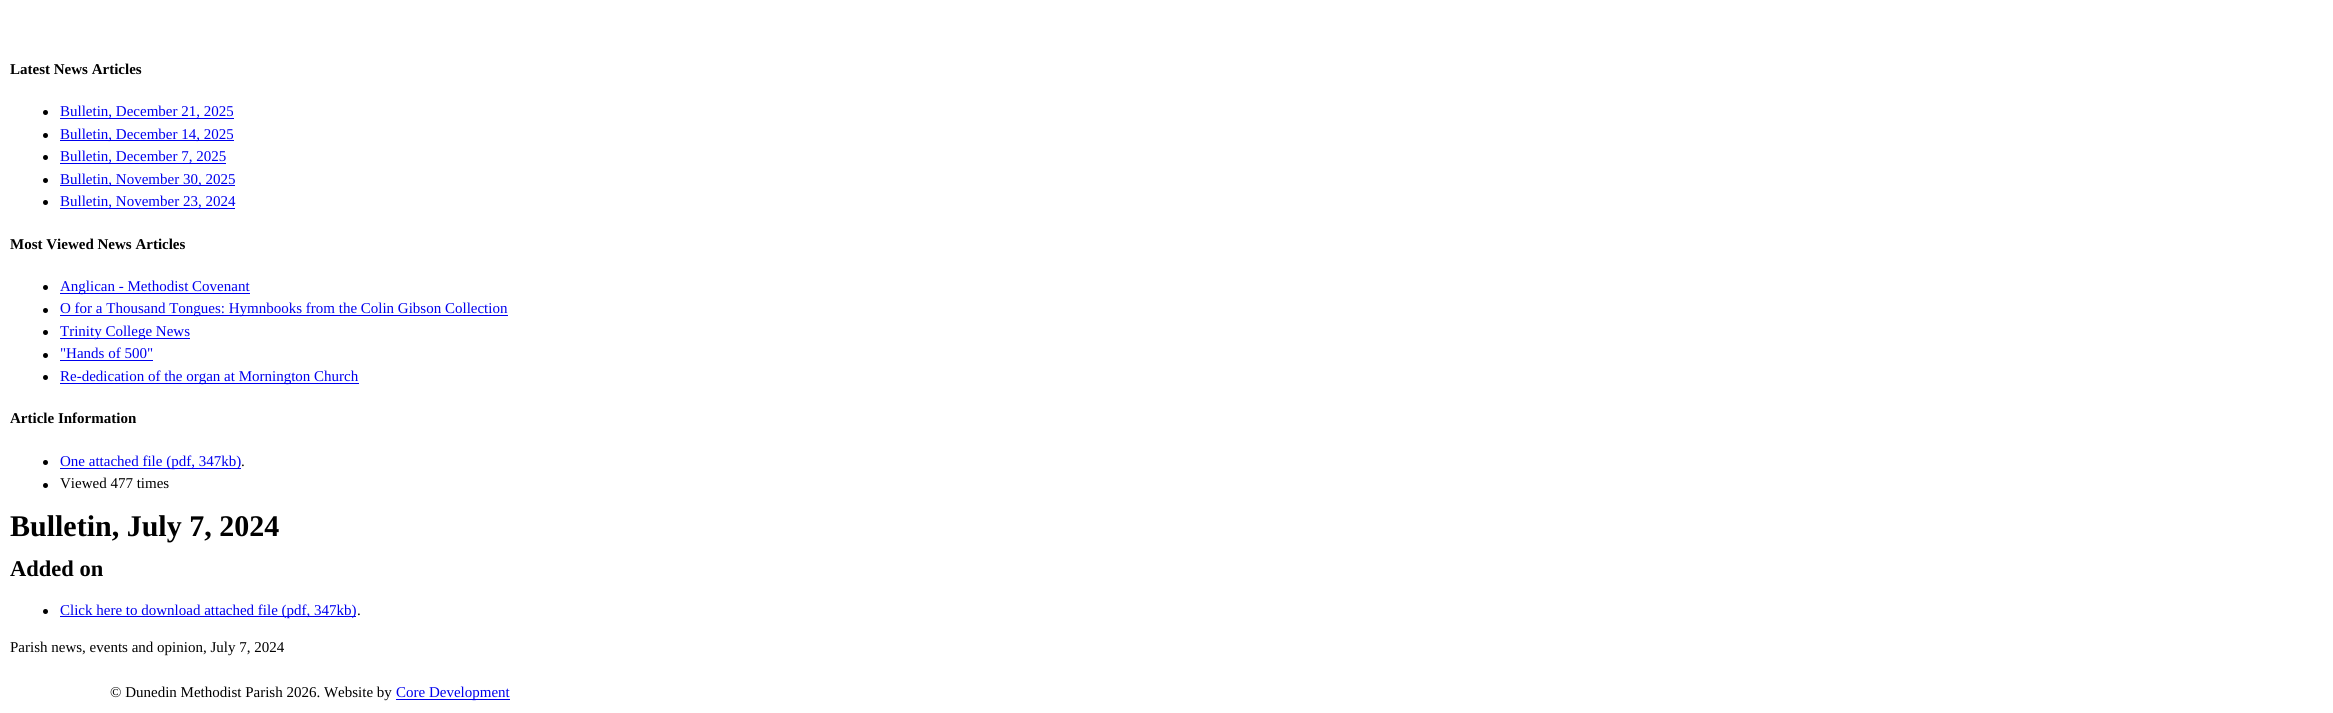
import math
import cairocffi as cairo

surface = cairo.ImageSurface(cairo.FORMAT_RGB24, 2333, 713)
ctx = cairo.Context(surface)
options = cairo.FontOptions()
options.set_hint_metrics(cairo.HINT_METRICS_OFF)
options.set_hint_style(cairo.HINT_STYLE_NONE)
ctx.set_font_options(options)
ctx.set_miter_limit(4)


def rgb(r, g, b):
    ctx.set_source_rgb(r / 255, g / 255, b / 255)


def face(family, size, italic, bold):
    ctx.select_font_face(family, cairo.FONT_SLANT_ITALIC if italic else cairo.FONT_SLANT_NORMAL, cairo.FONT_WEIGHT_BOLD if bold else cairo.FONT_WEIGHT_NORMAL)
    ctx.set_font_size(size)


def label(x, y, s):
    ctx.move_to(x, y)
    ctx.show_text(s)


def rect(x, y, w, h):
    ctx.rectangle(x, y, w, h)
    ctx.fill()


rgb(255, 255, 255)
ctx.paint()
face('Liberation Serif', 15, 0, 1)
rgb(0, 0, 0)
label(10, 74, 'Latest News Articles')
ctx.new_path()
ctx.arc(45.5, 112.5, 2.5, 0, 2 * math.pi)
ctx.fill()
rgb(0, 0, 238)
rect(60, 118, 174, 1)
face('Liberation Serif', 15, 0, 0)
label(60, 116, 'Bulletin, December 21, 2025')
rgb(0, 0, 0)
ctx.new_path()
ctx.arc(45.5, 135.5, 2.5, 0, 2 * math.pi)
ctx.fill()
rgb(0, 0, 238)
rect(60, 140, 174, 1)
label(60, 139, 'Bulletin, December 14, 2025')
rgb(0, 0, 0)
ctx.new_path()
ctx.arc(45.5, 157.5, 2.5, 0, 2 * math.pi)
ctx.fill()
rgb(0, 0, 238)
rect(60, 163, 166, 1)
label(60, 161, 'Bulletin, December 7, 2025')
rgb(0, 0, 0)
ctx.new_path()
ctx.arc(45.5, 180.5, 2.5, 0, 2 * math.pi)
ctx.fill()
rgb(0, 0, 238)
rect(60, 185, 175, 1)
label(60, 184, 'Bulletin, November 30, 2025')
rgb(0, 0, 0)
ctx.new_path()
ctx.arc(45.5, 202.5, 2.5, 0, 2 * math.pi)
ctx.fill()
rgb(0, 0, 238)
rect(60, 208, 175, 1)
label(60, 206, 'Bulletin, November 23, 2024')
face('Liberation Serif', 15, 0, 1)
rgb(0, 0, 0)
label(10, 249, 'Most Viewed News Articles')
ctx.new_path()
ctx.arc(45.5, 287.5, 2.5, 0, 2 * math.pi)
ctx.fill()
rgb(0, 0, 238)
rect(60, 293, 190, 1)
face('Liberation Serif', 15, 0, 0)
label(60, 291, 'Anglican - Methodist Covenant')
rgb(0, 0, 0)
ctx.new_path()
ctx.arc(45.5, 310.5, 2.5, 0, 2 * math.pi)
ctx.fill()
rgb(0, 0, 238)
rect(60, 315, 448, 1)
label(60, 313, 'O for a Thousand Tongues: Hymnbooks from the Colin Gibson Collection')
rgb(0, 0, 0)
ctx.new_path()
ctx.arc(45.5, 332.5, 2.5, 0, 2 * math.pi)
ctx.fill()
rgb(0, 0, 238)
rect(60, 338, 130, 1)
label(60, 336, 'Trinity College News')
rgb(0, 0, 0)
ctx.new_path()
ctx.arc(45.5, 355.5, 2.5, 0, 2 * math.pi)
ctx.fill()
rgb(0, 0, 238)
label(60, 358, '"Hands of 500"')
rect(60, 360, 93, 1)
rgb(0, 0, 0)
ctx.new_path()
ctx.arc(45.5, 377.5, 2.5, 0, 2 * math.pi)
ctx.fill()
rgb(0, 0, 238)
rect(60, 383, 299, 1)
label(60, 381, 'Re-dedication of the organ at Mornington Church')
face('Liberation Serif', 15, 0, 1)
rgb(0, 0, 0)
label(10, 423, 'Article Information')
ctx.new_path()
ctx.arc(45.5, 462.5, 2.5, 0, 2 * math.pi)
ctx.fill()
rgb(0, 0, 238)
rect(60, 468, 181, 1)
face('Liberation Serif', 15, 0, 0)
label(60, 466, 'One attached file (pdf, 347kb)')
rgb(0, 0, 0)
label(241, 466, '.')
ctx.new_path()
ctx.arc(45.5, 485.5, 2.5, 0, 2 * math.pi)
ctx.fill()
label(60, 488, 'Viewed 477 times')
face('Liberation Serif', 30, 0, 1)
label(10, 536, 'Bulletin, July 7, 2024')
face('Liberation Serif', 22.5, 0, 1)
label(10, 576, 'Added on')
ctx.new_path()
ctx.arc(45.5, 611.5, 2.5, 0, 2 * math.pi)
ctx.fill()
rgb(0, 0, 238)
rect(60, 616, 296, 1)
face('Liberation Serif', 15, 0, 0)
label(60, 615, 'Click here to download attached file (pdf, 347kb)')
rgb(0, 0, 0)
label(357, 615, '.')
label(10, 652, 'Parish news, events and opinion, July 7, 2024')
label(110, 697, '© Dunedin Methodist Parish 2026. Website by')
rgb(0, 0, 238)
rect(396, 699, 114, 1)
label(396, 697, 'Core Development')
surface.write_to_png('render.png')
